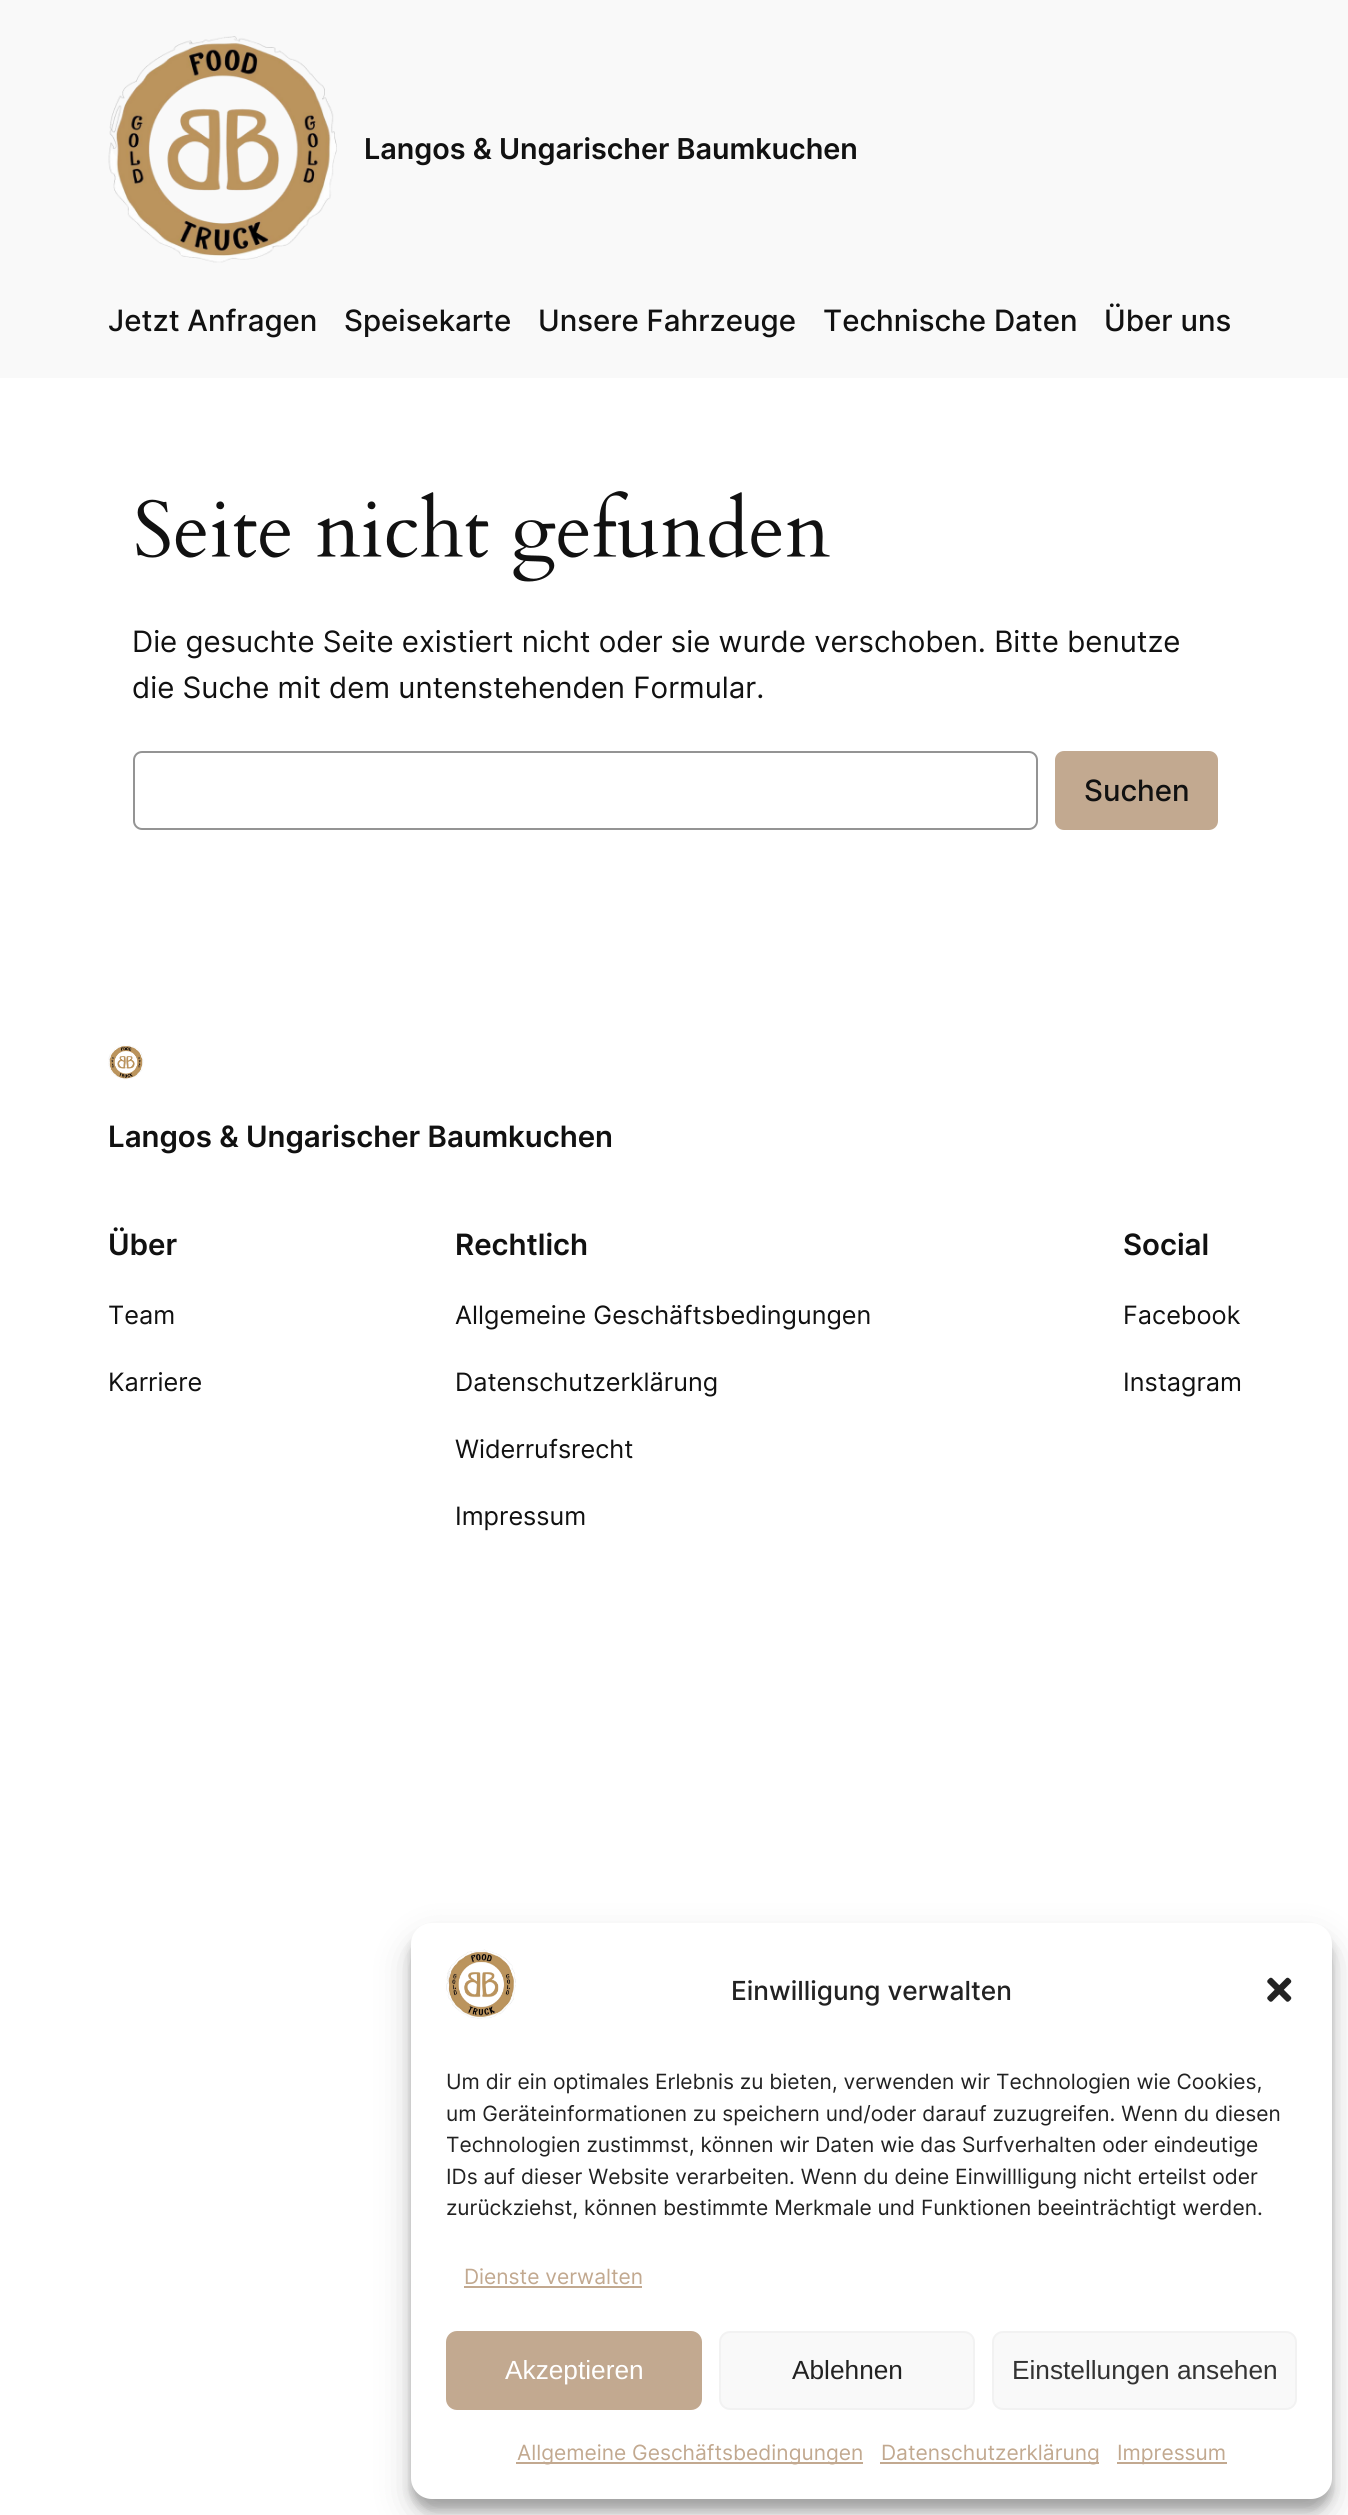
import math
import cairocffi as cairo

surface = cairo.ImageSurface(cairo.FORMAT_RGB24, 1348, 2515)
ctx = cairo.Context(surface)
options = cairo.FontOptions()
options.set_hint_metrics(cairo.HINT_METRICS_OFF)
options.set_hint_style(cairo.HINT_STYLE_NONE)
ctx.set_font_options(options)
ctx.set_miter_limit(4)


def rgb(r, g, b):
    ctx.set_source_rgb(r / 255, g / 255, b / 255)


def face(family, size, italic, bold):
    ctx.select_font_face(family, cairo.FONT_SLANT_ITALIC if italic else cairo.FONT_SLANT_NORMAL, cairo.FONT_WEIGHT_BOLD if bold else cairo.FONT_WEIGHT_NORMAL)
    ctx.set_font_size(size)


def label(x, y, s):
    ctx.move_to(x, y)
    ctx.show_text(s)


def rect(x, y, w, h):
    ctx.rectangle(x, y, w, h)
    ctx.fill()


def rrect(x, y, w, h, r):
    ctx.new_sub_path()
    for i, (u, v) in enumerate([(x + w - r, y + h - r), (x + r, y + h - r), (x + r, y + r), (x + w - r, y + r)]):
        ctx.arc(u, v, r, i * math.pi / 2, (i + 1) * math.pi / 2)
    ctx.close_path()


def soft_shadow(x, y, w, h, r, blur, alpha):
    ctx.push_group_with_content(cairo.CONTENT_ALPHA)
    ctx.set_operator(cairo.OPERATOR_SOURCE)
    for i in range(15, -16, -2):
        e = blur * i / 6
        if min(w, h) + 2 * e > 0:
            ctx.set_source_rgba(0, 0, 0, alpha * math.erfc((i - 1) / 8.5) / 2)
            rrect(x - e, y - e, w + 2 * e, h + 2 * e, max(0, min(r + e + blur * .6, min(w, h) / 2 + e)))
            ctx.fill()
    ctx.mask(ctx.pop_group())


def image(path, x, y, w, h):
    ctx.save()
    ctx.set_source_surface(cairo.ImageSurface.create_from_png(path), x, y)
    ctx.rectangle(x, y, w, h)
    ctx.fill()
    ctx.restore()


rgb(255, 255, 255)
ctx.paint()
rgb(249, 249, 249)
rect(0, 0, 1348, 378)
image('image0.png', 108, 36, 229, 227)
face('Inter SemiBold', 28.75, 0, 0)
rgb(17, 17, 17)
label(364, 159, 'Langos & Ungarischer Baumkuchen')
face('Inter Medium', 29.4, 0, 0)
label(108, 331, 'Jetzt Anfragen')
label(344, 331, 'Speisekarte')
label(538, 331, 'Unsere Fahrzeuge')
label(823, 331, 'Technische Daten')
label(1104, 331, 'Über uns')
image('image1.png', 136, 491, 694, 91)
face('Inter', 29.4, 0, 0)
label(132, 652, 'Die gesuchte Seite existiert nicht oder sie wurde verschoben. Bitte benutze')
label(132, 698, 'die Suche mit dem untenstehenden Formular.')
rrect(134, 752, 903, 77, 8)
rgb(148, 148, 148)
ctx.stroke()
rgb(194, 169, 144)
rrect(1055, 751, 163, 79, 9)
ctx.fill()
face('Inter Medium', 29.4, 0, 0)
rgb(17, 17, 17)
label(1084, 801, 'Suchen')
image('image2.png', 108, 1045, 36, 35)
face('Inter SemiBold', 29.4, 0, 0)
label(108, 1147, 'Langos & Ungarischer Baumkuchen')
label(108, 1255, 'Über')
face('Inter', 25.25, 0, 0)
label(108, 1324, 'Team')
label(108, 1391, 'Karriere')
face('Inter SemiBold', 29.4, 0, 0)
label(455, 1255, 'Rechtlich')
face('Inter', 25.25, 0, 0)
label(455, 1324, 'Allgemeine Geschäftsbedingungen')
label(455, 1391, 'Datenschutzerklärung')
label(455, 1458, 'Widerrufsrecht')
label(455, 1525, 'Impressum')
face('Inter SemiBold', 29.4, 0, 0)
label(1123, 1255, 'Social')
face('Inter', 25.25, 0, 0)
label(1123, 1324, 'Facebook')
label(1123, 1391, 'Instagram')
rgb(0, 0, 0)
soft_shadow(411, 1934, 921, 576, 21, 5, 0.23)
soft_shadow(411, 1941, 921, 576, 21, 17.5, 0.19)
rgb(255, 255, 255)
rrect(411, 1923, 921, 576, 21)
ctx.fill()
image('image3.png', 446, 1949, 70, 70)
face('Inter Medium', 26.25, 0, 0)
rgb(34, 34, 34)
label(731, 2000, 'Einwilligung verwalten')
image('image4.png', 1267, 1977, 25, 25)
face('Inter', 21, 0, 0)
label(446, 2089, 'Um dir ein optimales Erlebnis zu bieten, verwenden wir Technologien wie Cookies,')
label(446, 2121, 'um Geräteinformationen zu speichern und/oder darauf zuzugreifen. Wenn du diesen')
label(446, 2152, 'Technologien zustimmst, können wir Daten wie das Surfverhalten oder eindeutige')
label(446, 2184, 'IDs auf dieser Website verarbeiten. Wenn du deine Einwillligung nicht erteilst oder')
label(446, 2215, 'zurückziehst, können bestimmte Merkmale und Funktionen beeinträchtigt werden.')
rgb(194, 169, 144)
label(464, 2284, 'Dienste verwalten')
rect(464, 2286, 178, 2)
rrect(447, 2332, 254, 77, 10)
ctx.fill_preserve()
ctx.stroke()
face('Liberation Sans', 26.25, 0, 0)
rgb(255, 255, 255)
label(505, 2379, 'Akzeptieren')
rgb(249, 249, 249)
rrect(720, 2332, 254, 77, 10)
ctx.fill_preserve()
rgb(242, 242, 242)
ctx.stroke()
rgb(34, 34, 34)
label(792, 2379, 'Ablehnen')
rgb(249, 249, 249)
rrect(993, 2332, 303, 77, 10)
ctx.fill_preserve()
rgb(242, 242, 242)
ctx.stroke()
rgb(51, 51, 51)
label(1012, 2379, 'Einstellungen ansehen')
rgb(194, 169, 144)
rect(516, 2462, 347, 2)
face('Inter', 21, 0, 0)
label(517, 2460, 'Allgemeine Geschäftsbedingungen')
rect(880, 2462, 219, 2)
label(881, 2460, 'Datenschutzerklärung')
rect(1117, 2462, 110, 2)
label(1117, 2460, 'Impressum')
surface.write_to_png('render.png')
